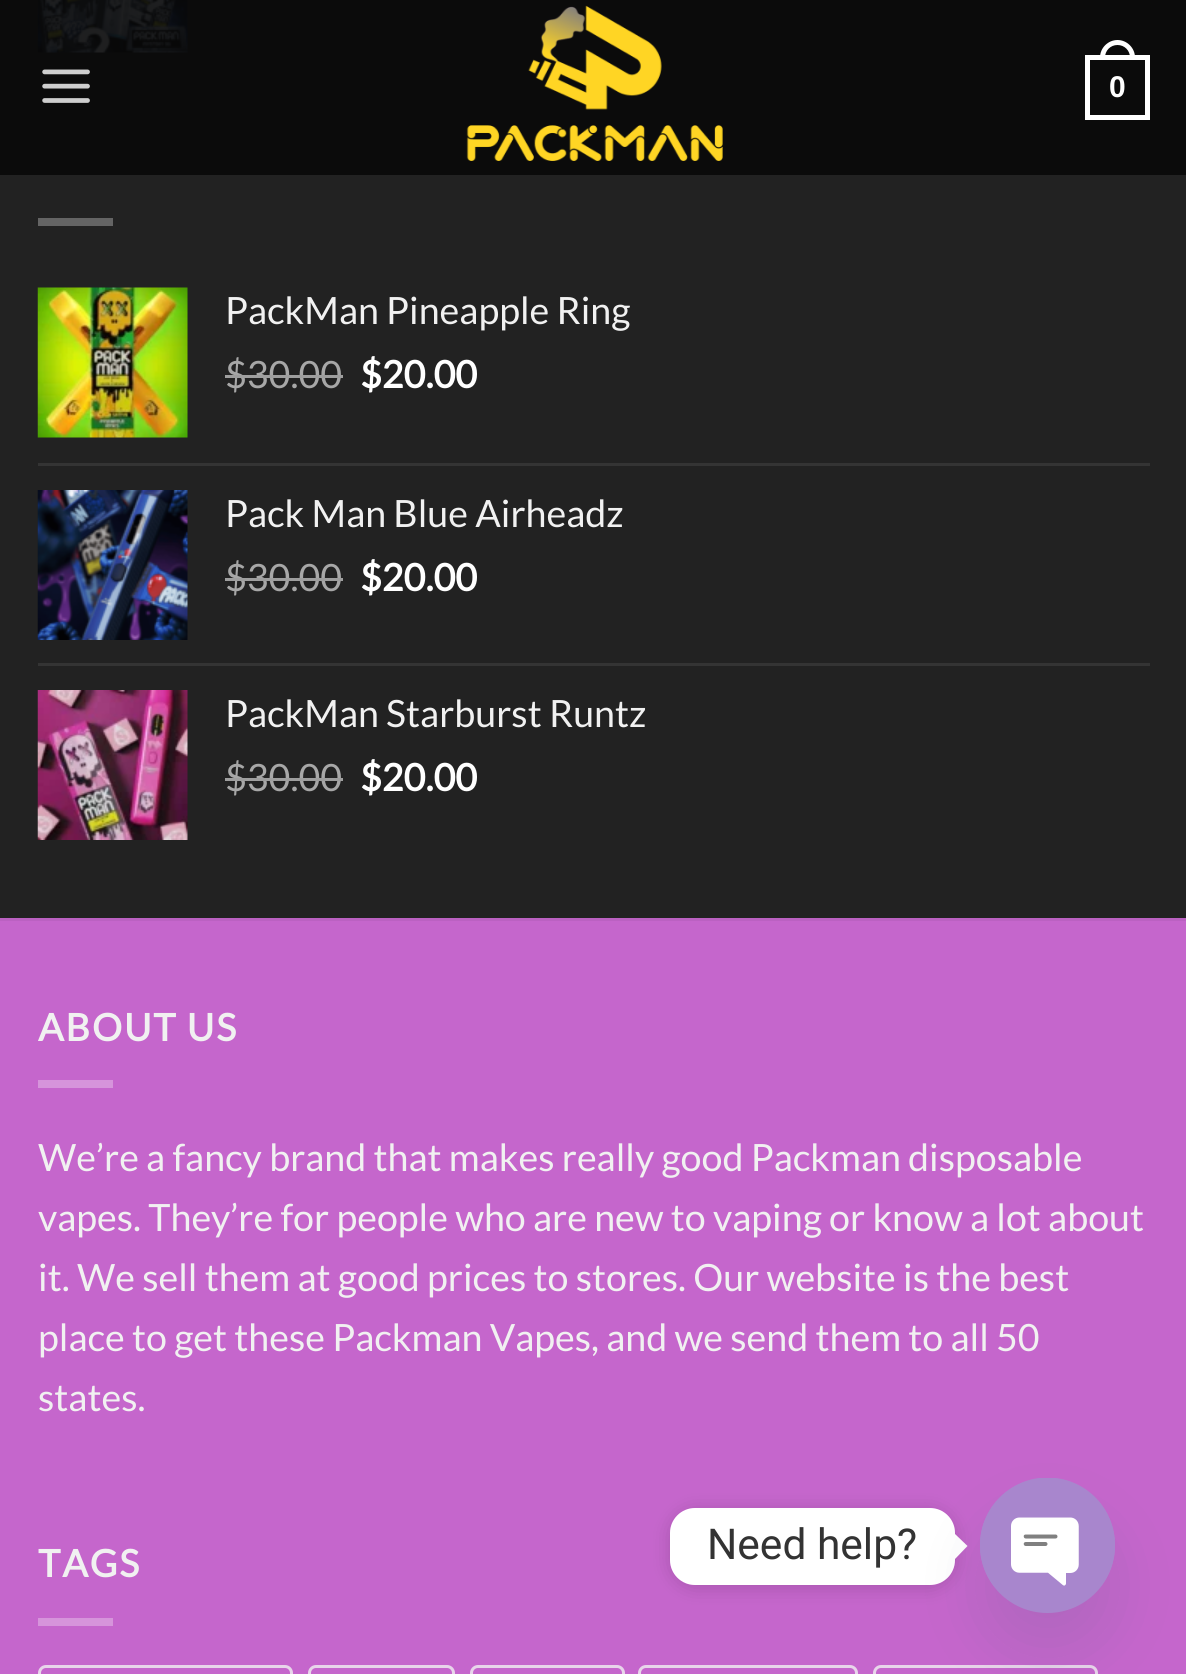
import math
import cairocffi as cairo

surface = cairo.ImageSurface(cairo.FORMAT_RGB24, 1186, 1674)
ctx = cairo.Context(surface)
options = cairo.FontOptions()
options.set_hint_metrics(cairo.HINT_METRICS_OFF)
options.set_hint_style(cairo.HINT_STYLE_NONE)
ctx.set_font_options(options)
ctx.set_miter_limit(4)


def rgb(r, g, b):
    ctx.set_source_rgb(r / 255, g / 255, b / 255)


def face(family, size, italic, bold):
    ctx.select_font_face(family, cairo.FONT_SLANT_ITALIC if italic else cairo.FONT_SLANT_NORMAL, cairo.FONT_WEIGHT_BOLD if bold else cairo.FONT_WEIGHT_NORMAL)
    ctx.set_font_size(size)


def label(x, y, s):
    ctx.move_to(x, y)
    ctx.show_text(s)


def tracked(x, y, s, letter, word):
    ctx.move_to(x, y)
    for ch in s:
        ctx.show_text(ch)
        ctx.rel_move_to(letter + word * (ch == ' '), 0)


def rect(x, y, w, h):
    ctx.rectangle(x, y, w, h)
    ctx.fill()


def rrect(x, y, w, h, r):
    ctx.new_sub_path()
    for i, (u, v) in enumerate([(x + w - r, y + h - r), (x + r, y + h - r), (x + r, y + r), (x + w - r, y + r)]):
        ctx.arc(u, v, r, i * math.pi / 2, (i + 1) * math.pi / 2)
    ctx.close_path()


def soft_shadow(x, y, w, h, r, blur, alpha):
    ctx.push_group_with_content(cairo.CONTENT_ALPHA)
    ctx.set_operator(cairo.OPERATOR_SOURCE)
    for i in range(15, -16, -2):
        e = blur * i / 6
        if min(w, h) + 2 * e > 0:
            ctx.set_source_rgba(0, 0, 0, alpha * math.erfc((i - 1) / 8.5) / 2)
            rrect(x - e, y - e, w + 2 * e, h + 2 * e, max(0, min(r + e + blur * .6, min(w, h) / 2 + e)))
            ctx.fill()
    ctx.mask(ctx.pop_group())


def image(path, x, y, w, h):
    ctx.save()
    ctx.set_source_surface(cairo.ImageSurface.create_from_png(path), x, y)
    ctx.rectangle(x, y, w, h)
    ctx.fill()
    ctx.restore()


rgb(34, 34, 34)
ctx.paint()
image('image2.png', 37, 0, 151, 53)
ctx.set_source_rgba(0.039, 0.039, 0.039, 0.9)
rect(0, 0, 1186, 175)
image('image0.png', 42, 69, 48, 34)
image('image1.png', 466, 5, 257, 156)
ctx.rectangle(1087.5, 57.5, 60, 60)
rgb(255, 255, 255)
ctx.set_line_width(5)
ctx.stroke()
ctx.set_fill_rule(cairo.FILL_RULE_EVEN_ODD)
ctx.new_path()
ctx.move_to(1117.5, 40)
ctx.curve_to(1127, 40, 1135, 48, 1135, 57.5)
ctx.line_to(1135, 60)
ctx.line_to(1100, 60)
ctx.line_to(1100, 57.5)
ctx.curve_to(1100, 48, 1108, 40, 1117.5, 40)
ctx.close_path()
ctx.move_to(1117.5, 45)
ctx.curve_to(1124.5, 45, 1130, 50.5, 1130, 57.5)
ctx.line_to(1130, 60)
ctx.line_to(1105, 60)
ctx.line_to(1105, 57.5)
ctx.curve_to(1105, 50.5, 1110.5, 45, 1117.5, 45)
ctx.close_path()
ctx.fill()
face('Liberation Sans', 30, 0, 1)
label(1109, 97, '0')
rgb(100, 100, 100)
rect(38, 218, 75, 8)
image('image3.png', 37, 287, 151, 151)
face('Lato', 37.6, 0, 0)
rgb(241, 241, 241)
label(225, 324, 'PackMan Pineapple Ring')
rgb(167, 167, 167)
label(225, 388, '$30.00')
rgb(158, 158, 158)
rect(225, 375, 118, 3)
face('Lato', 37.6, 0, 1)
rgb(255, 255, 255)
label(360, 388, '$20.00')
rgb(52, 52, 52)
rect(38, 463, 1112, 3)
image('image4.png', 37, 490, 151, 150)
face('Lato', 37.6, 0, 0)
rgb(241, 241, 241)
label(225, 527, 'Pack Man Blue Airheadz')
rgb(167, 167, 167)
label(225, 591, '$30.00')
rgb(158, 158, 158)
rect(225, 578, 118, 3)
face('Lato', 37.6, 0, 1)
rgb(255, 255, 255)
label(360, 591, '$20.00')
rgb(52, 52, 52)
rect(38, 663, 1112, 3)
image('image5.png', 37, 690, 151, 150)
face('Lato', 37.6, 0, 0)
rgb(241, 241, 241)
label(225, 727, 'PackMan Starburst Runtz')
rgb(167, 167, 167)
label(225, 791, '$30.00')
rgb(158, 158, 158)
rect(225, 778, 118, 3)
face('Lato', 37.6, 0, 1)
rgb(255, 255, 255)
label(360, 791, '$20.00')
rgb(197, 102, 204)
rect(0, 921, 1186, 753)
rgb(187, 97, 194)
rect(0, 918, 1186, 3)
rgb(241, 241, 241)
tracked(38, 1041, 'ABOUT US', 2, 0)
rgb(214, 148, 219)
rect(38, 1080, 75, 8)
face('Lato', 37.6, 0, 0)
rgb(241, 241, 241)
label(38, 1171, 'We’re a fancy brand that makes really good Packman disposable')
label(38, 1231, 'vapes. They’re for people who are new to vaping or know a lot about')
label(38, 1291, 'it. We sell them at good prices to stores. Our website is the best')
label(38, 1351, 'place to get these Packman Vapes, and we send them to all 50')
label(38, 1411, 'states.')
face('Lato', 37.6, 0, 1)
tracked(38, 1577, 'TAGS', 2, 0)
rgb(214, 148, 219)
rect(38, 1618, 75, 8)
rrect(39.5, 1666.5, 252, 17, 6.5)
rgb(232, 213, 234)
ctx.set_line_width(3)
ctx.stroke()
rrect(309.5, 1666.5, 144, 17, 6.5)
ctx.stroke()
rrect(471.5, 1666.5, 152, 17, 6.5)
ctx.stroke()
rrect(639.5, 1666.5, 217, 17, 6.5)
ctx.stroke()
rrect(874.5, 1666.5, 222, 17, 6.5)
ctx.stroke()
ctx.save()
ctx.new_path()
ctx.move_to(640, 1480)
ctx.line_to(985, 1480)
ctx.line_to(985, 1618)
ctx.line_to(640, 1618)
ctx.close_path()
ctx.move_to(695, 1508)
ctx.line_to(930, 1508)
ctx.curve_to(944, 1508, 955, 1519, 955, 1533)
ctx.line_to(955, 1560)
ctx.curve_to(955, 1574, 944, 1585, 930, 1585)
ctx.line_to(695, 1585)
ctx.curve_to(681, 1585, 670, 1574, 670, 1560)
ctx.line_to(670, 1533)
ctx.curve_to(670, 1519, 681, 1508, 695, 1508)
ctx.close_path()
ctx.clip()
rgb(0, 0, 0)
soft_shadow(670, 1510, 285, 78, 25, 9.5, 0.15)
ctx.restore()
rgb(255, 255, 255)
rrect(670, 1508, 285, 77, 25)
ctx.fill()
face('Roboto', 42.5, 0, 0)
rgb(51, 51, 51)
label(707, 1559, 'Need help?')
rgb(255, 255, 255)
ctx.set_fill_rule(cairo.FILL_RULE_WINDING)
ctx.new_path()
ctx.move_to(955, 1559)
ctx.line_to(955, 1534)
ctx.line_to(967.5, 1546)
ctx.close_path()
ctx.fill()
rgb(73, 104, 126)
soft_shadow(980, 1518, 135, 135, 67.5, 30, 0.16)
rgb(168, 134, 205)
ctx.arc(1047.5, 1545.5, 67.5, 0, 2 * math.pi)
ctx.fill()
image('image6.png', 980, 1478, 135, 108)
surface.write_to_png('render.png')
